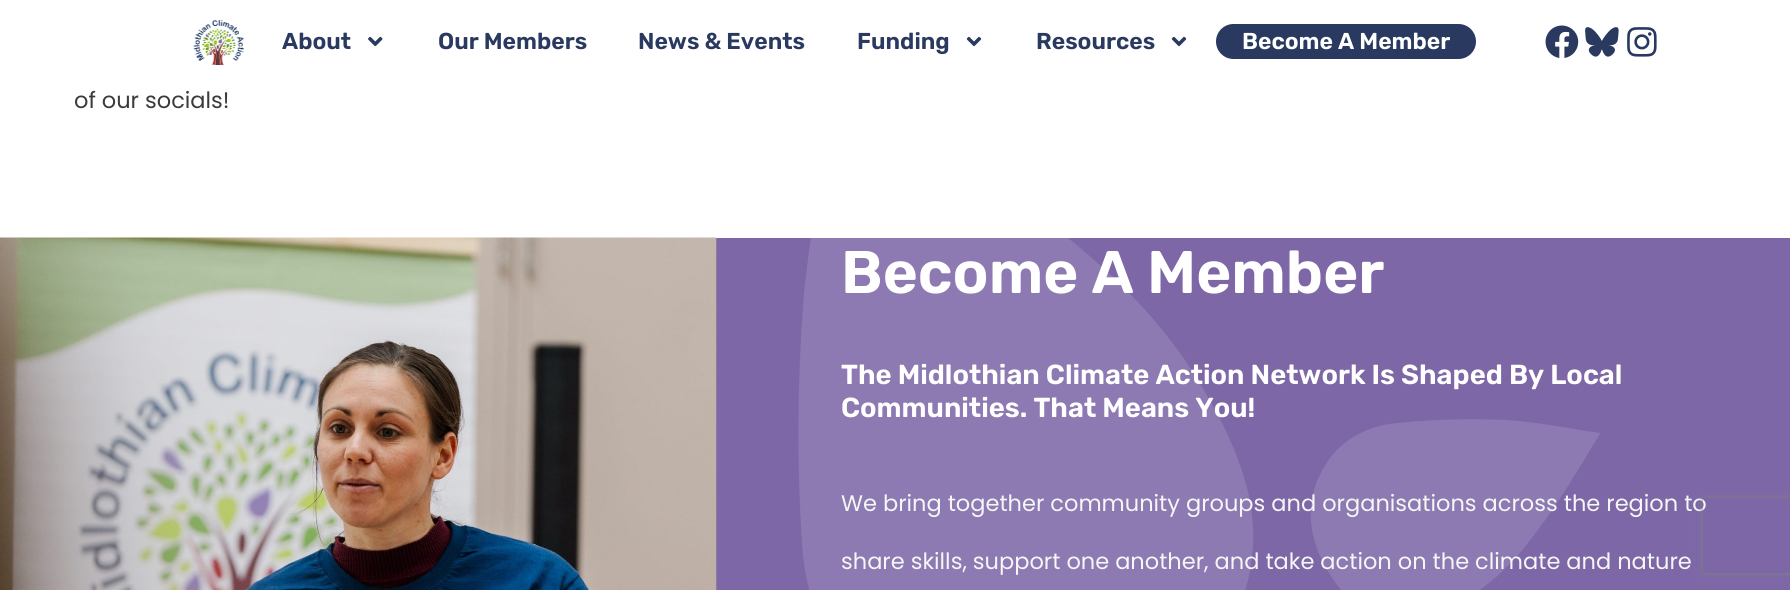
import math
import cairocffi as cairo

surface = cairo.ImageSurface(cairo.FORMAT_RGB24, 1790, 590)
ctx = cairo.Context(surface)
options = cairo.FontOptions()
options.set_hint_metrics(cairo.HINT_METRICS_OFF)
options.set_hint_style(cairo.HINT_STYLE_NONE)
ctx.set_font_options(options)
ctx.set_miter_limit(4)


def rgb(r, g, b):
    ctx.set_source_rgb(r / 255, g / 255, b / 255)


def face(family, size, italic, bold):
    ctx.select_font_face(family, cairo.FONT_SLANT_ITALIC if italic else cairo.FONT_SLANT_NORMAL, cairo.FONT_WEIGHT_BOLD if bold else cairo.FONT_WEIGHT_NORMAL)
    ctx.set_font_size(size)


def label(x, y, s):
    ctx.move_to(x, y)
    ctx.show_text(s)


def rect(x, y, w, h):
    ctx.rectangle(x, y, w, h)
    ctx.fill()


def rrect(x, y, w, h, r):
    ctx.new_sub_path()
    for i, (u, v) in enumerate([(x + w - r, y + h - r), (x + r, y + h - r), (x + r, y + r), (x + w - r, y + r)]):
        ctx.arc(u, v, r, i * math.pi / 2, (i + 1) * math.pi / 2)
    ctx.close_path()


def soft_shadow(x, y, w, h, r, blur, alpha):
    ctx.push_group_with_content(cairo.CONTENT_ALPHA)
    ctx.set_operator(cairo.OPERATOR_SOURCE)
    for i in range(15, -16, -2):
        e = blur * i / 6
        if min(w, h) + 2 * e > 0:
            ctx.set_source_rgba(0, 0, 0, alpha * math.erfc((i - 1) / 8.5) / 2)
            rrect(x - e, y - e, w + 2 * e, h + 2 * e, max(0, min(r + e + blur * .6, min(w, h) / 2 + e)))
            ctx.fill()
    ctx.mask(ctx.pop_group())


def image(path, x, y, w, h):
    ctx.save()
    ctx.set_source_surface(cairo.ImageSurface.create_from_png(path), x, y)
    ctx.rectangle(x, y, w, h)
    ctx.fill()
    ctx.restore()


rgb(255, 255, 255)
ctx.paint()
image('image0.png', 193, 20, 51, 45)
face('Rubik SemiBold', 23, 0, 0)
rgb(42, 57, 96)
label(282, 49, 'About')
image('image1.png', 368, 36, 15, 11)
label(438, 49, 'Our Members')
label(638, 49, 'News & Events')
label(857, 49, 'Funding')
image('image2.png', 966, 36, 16, 11)
label(1036, 49, 'Resources')
image('image2.png', 1171, 36, 16, 11)
rrect(1216, 24, 260, 35, 17.5)
ctx.fill()
rgb(255, 255, 255)
label(1242, 49, 'Become A Member')
image('image3.png', 1545, 25, 34, 33)
image('image4.png', 1585, 27, 34, 30)
image('image5.png', 1627, 27, 30, 30)
face('Poppins', 22.5, 0, 0)
rgb(59, 59, 59)
label(74, 108, 'of our socials!')
rgb(125, 103, 167)
rect(716, 238, 1074, 352)
image('image6.png', 0, 237, 717, 353)
image('image7.png', 798, 238, 802, 352)
face('Rubik SemiBold', 60, 0, 0)
rgb(255, 255, 255)
label(841, 293, 'Become A Member')
face('Rubik SemiBold', 27.5, 0, 0)
label(841, 384, 'The Midlothian Climate Action Network Is Shaped By Local')
label(841, 417, 'Communities. That Means You!')
face('Poppins', 22.5, 0, 0)
rgb(245, 246, 246)
label(841, 511, 'We bring together community groups and organisations across the region to')
label(841, 569, 'share skills, support one another, and take action on the climate and nature')
ctx.save()
ctx.set_fill_rule(cairo.FILL_RULE_EVEN_ODD)
ctx.new_path()
ctx.move_to(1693, 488)
ctx.line_to(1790, 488)
ctx.line_to(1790, 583)
ctx.line_to(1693, 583)
ctx.close_path()
ctx.move_to(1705.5, 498)
ctx.line_to(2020.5, 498)
ctx.curve_to(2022, 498, 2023, 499, 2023, 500.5)
ctx.line_to(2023, 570.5)
ctx.curve_to(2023, 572, 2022, 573, 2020.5, 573)
ctx.line_to(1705.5, 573)
ctx.curve_to(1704, 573, 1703, 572, 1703, 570.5)
ctx.line_to(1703, 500.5)
ctx.curve_to(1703, 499, 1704, 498, 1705.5, 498)
ctx.close_path()
ctx.clip()
rgb(128, 128, 128)
soft_shadow(1703, 498, 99, 75, 2.5, 3, 1)
ctx.restore()
surface.write_to_png('render.png')
